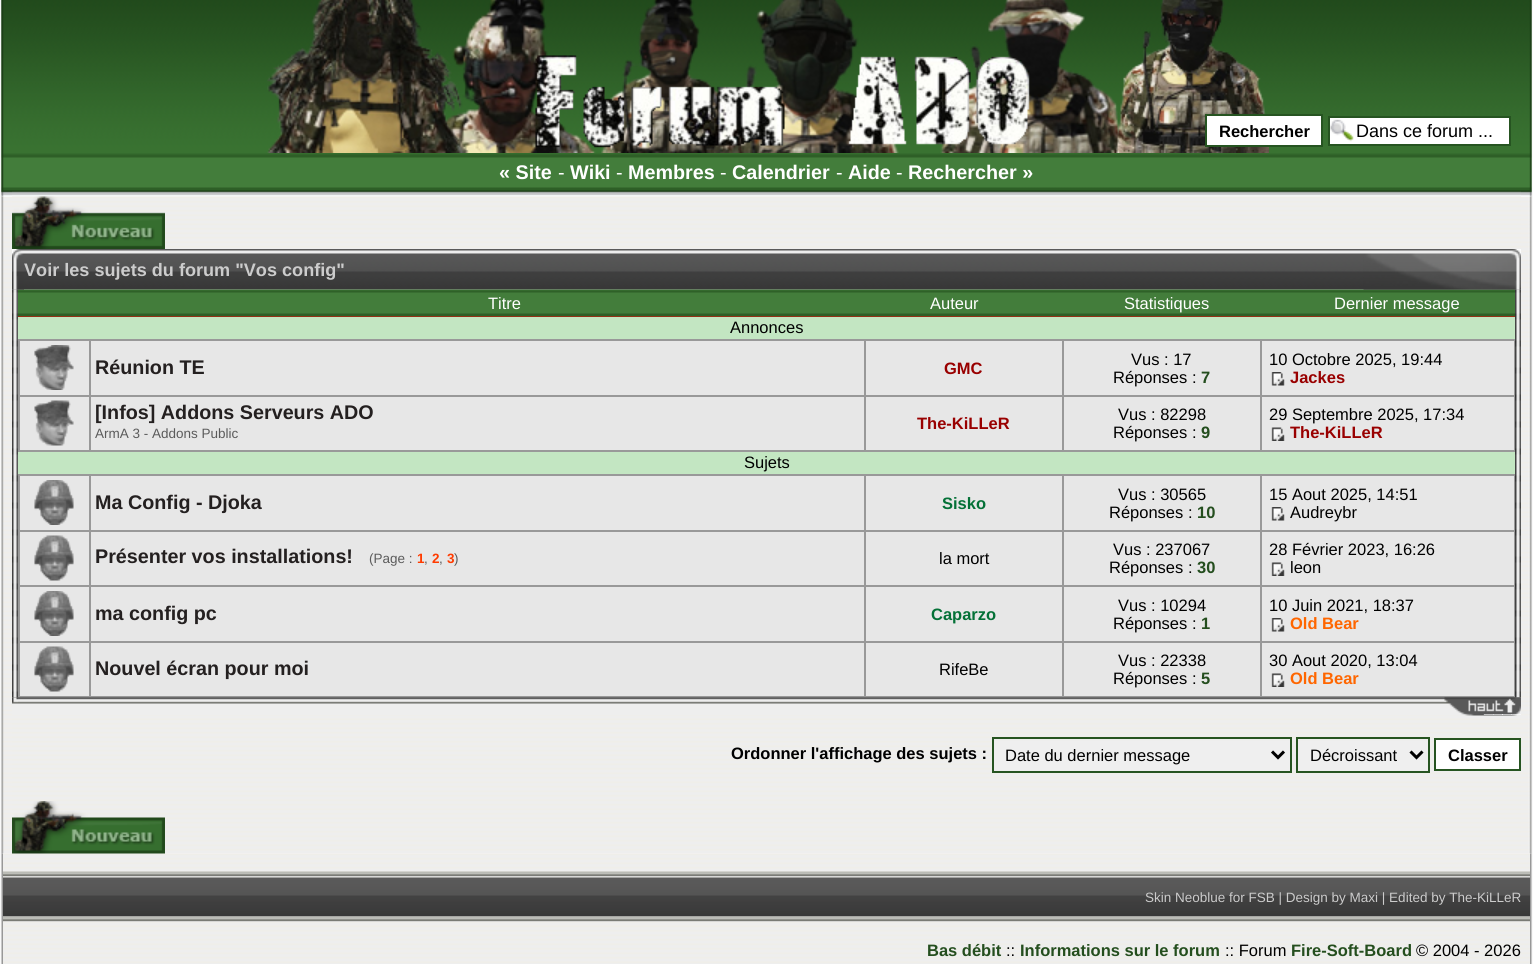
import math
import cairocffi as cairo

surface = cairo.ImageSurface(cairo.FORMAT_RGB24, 1533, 964)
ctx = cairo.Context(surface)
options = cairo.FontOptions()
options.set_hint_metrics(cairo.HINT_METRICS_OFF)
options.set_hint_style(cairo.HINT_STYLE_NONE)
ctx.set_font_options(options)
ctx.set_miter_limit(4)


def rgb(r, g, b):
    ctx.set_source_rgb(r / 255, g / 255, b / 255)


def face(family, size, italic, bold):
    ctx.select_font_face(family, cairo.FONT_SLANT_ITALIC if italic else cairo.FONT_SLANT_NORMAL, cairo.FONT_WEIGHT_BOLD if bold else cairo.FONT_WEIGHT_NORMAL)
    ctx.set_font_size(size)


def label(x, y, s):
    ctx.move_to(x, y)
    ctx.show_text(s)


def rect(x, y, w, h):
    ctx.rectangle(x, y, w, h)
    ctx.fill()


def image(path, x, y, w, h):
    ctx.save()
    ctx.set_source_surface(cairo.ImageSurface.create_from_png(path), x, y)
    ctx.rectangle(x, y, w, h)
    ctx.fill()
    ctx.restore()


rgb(249, 249, 249)
ctx.paint()
image('image0.png', 1, 0, 1531, 153)
image('image1.png', 1, 0, 3, 153)
image('image2.png', 267, 0, 1002, 153)
rgb(255, 255, 255)
ctx.rectangle(1206, 115, 116, 31)
ctx.fill_preserve()
rgb(38, 84, 33)
ctx.stroke()
face('Liberation Sans', 16.5, 0, 1)
rgb(0, 0, 0)
label(1219, 137, 'Rechercher')
rgb(255, 255, 255)
rect(1330, 118, 179, 26)
image('image3.png', 1330, 119, 24, 23)
ctx.rectangle(1329, 117, 181, 28)
rgb(38, 84, 33)
ctx.stroke()
face('Liberation Sans', 18, 0, 0)
rgb(0, 0, 0)
label(1356, 137, 'Dans ce forum ...')
image('image4.png', 1529, 0, 3, 153)
image('image5.png', 1, 153, 1531, 43)
image('image8.png', 1, 196, 11, 658)
image('image6.png', 1, 153, 11, 44)
face('Liberation Sans', 19.75, 0, 1)
rgb(255, 255, 255)
label(499, 179, '« Site')
face('Liberation Sans', 19.75, 0, 0)
label(558, 179, '-')
face('Liberation Sans', 19.75, 0, 1)
label(570, 179, 'Wiki')
face('Liberation Sans', 19.75, 0, 0)
label(616, 179, '-')
face('Liberation Sans', 19.75, 0, 1)
label(628, 179, 'Membres')
face('Liberation Sans', 19.75, 0, 0)
label(720, 179, '-')
face('Liberation Sans', 19.75, 0, 1)
label(732, 179, 'Calendrier')
face('Liberation Sans', 19.75, 0, 0)
label(836, 179, '-')
face('Liberation Sans', 19.75, 0, 1)
label(848, 179, 'Aide')
face('Liberation Sans', 19.75, 0, 0)
label(896, 179, '-')
face('Liberation Sans', 19.75, 0, 1)
label(908, 179, 'Rechercher »')
image('image27.png', 1521, 196, 11, 658)
image('image7.png', 1521, 153, 11, 44)
image('image9.png', 12, 196, 1509, 658)
image('image10.png', 12, 196, 153, 53)
image('image11.png', 12, 249, 1509, 41)
ctx.rectangle(13, 291, 145, 25)
rgb(255, 0, 0)
ctx.stroke()
image('image14.png', 12, 289, 6, 409)
ctx.rectangle(160, 291, 688, 25)
ctx.stroke()
ctx.rectangle(850, 291, 210, 25)
ctx.stroke()
ctx.rectangle(1062, 291, 209, 25)
ctx.stroke()
ctx.rectangle(1273, 291, 247, 25)
ctx.stroke()
image('image15.png', 18, 289, 1497, 28)
image('image12.png', 12, 249, 12, 41)
face('Liberation Sans', 18.1, 0, 1)
rgb(204, 204, 204)
label(24, 276, 'Voir les sujets du forum "Vos config"')
rgb(231, 231, 231)
rect(20, 476, 1494, 220)
rgb(153, 153, 153)
rect(89, 476, 2, 55)
rect(20, 530, 70, 2)
rect(864, 476, 2, 55)
rect(90, 530, 776, 2)
rect(89, 531, 2, 111)
rect(864, 531, 2, 111)
rect(1062, 476, 2, 55)
rect(866, 530, 198, 2)
rect(1062, 531, 2, 111)
rect(1260, 476, 2, 55)
rect(1064, 530, 198, 2)
rect(1260, 531, 2, 111)
rect(1514, 476, 1, 55)
rect(1262, 530, 253, 2)
rect(1514, 531, 1, 111)
rect(20, 641, 1495, 2)
rect(1514, 642, 2, 56)
image('image22.png', 1515, 289, 6, 409)
image('image13.png', 1363, 249, 158, 41)
face('Liberation Sans', 16.5, 0, 0)
rgb(255, 255, 255)
label(488, 309, 'Titre')
label(930, 309, 'Auteur')
label(1124, 309, 'Statistiques')
label(1334, 309, 'Dernier message')
rgb(195, 230, 194)
rect(18, 317, 1497, 22)
rgb(0, 0, 0)
label(730, 333, 'Annonces')
rgb(231, 231, 231)
rect(20, 341, 1494, 109)
rgb(153, 153, 153)
rect(18, 339, 1497, 2)
rect(18, 339, 2, 113)
rect(89, 341, 2, 55)
rect(20, 395, 70, 2)
image('image16.png', 34, 345, 40, 45)
rect(864, 341, 2, 55)
rect(90, 395, 776, 2)
face('Liberation Sans', 19.75, 0, 1)
rgb(36, 32, 32)
label(95, 374, 'Réunion TE')
rgb(153, 153, 153)
rect(1062, 341, 2, 55)
rect(866, 395, 198, 2)
face('Liberation Sans', 16.5, 0, 1)
rgb(153, 0, 0)
label(944, 374, 'GMC')
rgb(153, 153, 153)
rect(1260, 341, 2, 55)
rect(1064, 395, 198, 2)
face('Liberation Sans', 16.5, 0, 0)
rgb(0, 0, 0)
label(1131, 365, 'Vus : 17')
label(1113, 383, 'Réponses :')
face('Liberation Sans', 16.5, 0, 1)
rgb(36, 78, 30)
label(1201, 383, '7')
rgb(153, 153, 153)
rect(1514, 341, 1, 55)
rect(1262, 395, 253, 2)
face('Liberation Sans', 16.5, 0, 0)
rgb(0, 0, 0)
label(1269, 365, '10 Octobre 2025, 19:44')
image('image17.png', 1271, 372, 14, 14)
face('Liberation Sans', 16.5, 0, 1)
rgb(153, 0, 0)
label(1290, 383, 'Jackes')
rgb(153, 153, 153)
rect(89, 396, 2, 56)
rect(20, 450, 70, 2)
image('image18.png', 34, 400, 40, 46)
rect(864, 396, 2, 56)
rect(90, 450, 776, 2)
face('Liberation Sans', 19.75, 0, 1)
rgb(36, 32, 32)
label(95, 419, '[Infos] Addons Serveurs ADO')
face('Liberation Sans', 13.5, 0, 0)
rgb(91, 91, 91)
label(95, 438, 'ArmA 3 - Addons Public')
rgb(153, 153, 153)
rect(1062, 396, 2, 56)
rect(866, 450, 198, 2)
face('Liberation Sans', 16.5, 0, 1)
rgb(153, 0, 0)
label(917, 429, 'The-KiLLeR')
rgb(153, 153, 153)
rect(1260, 396, 2, 56)
rect(1064, 450, 198, 2)
face('Liberation Sans', 16.5, 0, 0)
rgb(0, 0, 0)
label(1118, 420, 'Vus : 82298')
label(1113, 438, 'Réponses :')
face('Liberation Sans', 16.5, 0, 1)
rgb(36, 78, 30)
label(1201, 438, '9')
rgb(153, 153, 153)
rect(1514, 396, 1, 56)
rect(1262, 450, 253, 2)
face('Liberation Sans', 16.5, 0, 0)
rgb(0, 0, 0)
label(1269, 420, '29 Septembre 2025, 17:34')
image('image19.png', 1271, 427, 14, 14)
face('Liberation Sans', 16.5, 0, 1)
rgb(153, 0, 0)
label(1290, 438, 'The-KiLLeR')
rgb(195, 230, 194)
rect(18, 452, 1497, 22)
face('Liberation Sans', 16.5, 0, 0)
rgb(0, 0, 0)
label(744, 468, 'Sujets')
rgb(153, 153, 153)
rect(18, 474, 1497, 2)
rect(18, 474, 2, 224)
image('image20.png', 34, 480, 40, 45)
face('Liberation Sans', 19.75, 0, 1)
rgb(36, 32, 32)
label(95, 509, 'Ma Config - Djoka')
face('Liberation Sans', 16.5, 0, 1)
rgb(4, 113, 55)
label(942, 509, 'Sisko')
face('Liberation Sans', 16.5, 0, 0)
rgb(0, 0, 0)
label(1118, 500, 'Vus : 30565')
label(1109, 518, 'Réponses :')
face('Liberation Sans', 16.5, 0, 1)
rgb(36, 78, 30)
label(1197, 518, '10')
face('Liberation Sans', 16.5, 0, 0)
rgb(0, 0, 0)
label(1269, 500, '15 Aout 2025, 14:51')
image('image17.png', 1271, 507, 14, 14)
label(1290, 518, 'Audreybr')
rgb(153, 153, 153)
rect(20, 585, 70, 2)
image('image21.png', 34, 535, 40, 46)
rect(90, 585, 776, 2)
face('Liberation Sans', 19.75, 0, 1)
rgb(36, 32, 32)
label(95, 563, 'Présenter vos installations!')
face('Liberation Sans', 13.5, 0, 0)
rgb(91, 91, 91)
label(369, 563, '(Page :')
face('Liberation Sans', 13.5, 0, 1)
rgb(255, 59, 0)
label(417, 563, '1')
face('Liberation Sans', 13.5, 0, 0)
rgb(91, 91, 91)
label(424, 563, ',')
face('Liberation Sans', 13.5, 0, 1)
rgb(255, 59, 0)
label(432, 563, '2')
face('Liberation Sans', 13.5, 0, 0)
rgb(91, 91, 91)
label(439, 563, ',')
face('Liberation Sans', 13.5, 0, 1)
rgb(255, 59, 0)
label(447, 563, '3')
face('Liberation Sans', 13.5, 0, 0)
rgb(91, 91, 91)
label(454, 563, ')')
rgb(153, 153, 153)
rect(866, 585, 198, 2)
face('Liberation Sans', 16.5, 0, 0)
rgb(0, 0, 0)
label(939, 564, 'la mort')
rgb(153, 153, 153)
rect(1064, 585, 198, 2)
rgb(0, 0, 0)
label(1113, 555, 'Vus : 237067')
label(1109, 573, 'Réponses :')
face('Liberation Sans', 16.5, 0, 1)
rgb(36, 78, 30)
label(1197, 573, '30')
rgb(153, 153, 153)
rect(1262, 585, 253, 2)
face('Liberation Sans', 16.5, 0, 0)
rgb(0, 0, 0)
label(1269, 555, '28 Février 2023, 16:26')
image('image19.png', 1271, 562, 14, 14)
label(1290, 573, 'leon')
image('image20.png', 34, 591, 40, 45)
face('Liberation Sans', 19.75, 0, 1)
rgb(36, 32, 32)
label(95, 620, 'ma config pc')
face('Liberation Sans', 16.5, 0, 1)
rgb(4, 113, 55)
label(931, 620, 'Caparzo')
face('Liberation Sans', 16.5, 0, 0)
rgb(0, 0, 0)
label(1118, 611, 'Vus : 10294')
label(1113, 629, 'Réponses :')
face('Liberation Sans', 16.5, 0, 1)
rgb(36, 78, 30)
label(1201, 629, '1')
face('Liberation Sans', 16.5, 0, 0)
rgb(0, 0, 0)
label(1269, 611, '10 Juin 2021, 18:37')
image('image17.png', 1271, 618, 14, 14)
face('Liberation Sans', 16.5, 0, 1)
rgb(255, 102, 0)
label(1290, 629, 'Old Bear')
rgb(153, 153, 153)
rect(89, 642, 2, 56)
rect(20, 696, 70, 2)
image('image21.png', 34, 646, 40, 46)
rect(864, 642, 2, 56)
rect(90, 696, 776, 2)
face('Liberation Sans', 19.75, 0, 1)
rgb(36, 32, 32)
label(95, 675, 'Nouvel écran pour moi')
rgb(153, 153, 153)
rect(1062, 642, 2, 56)
rect(866, 696, 198, 2)
face('Liberation Sans', 16.5, 0, 0)
rgb(0, 0, 0)
label(939, 675, 'RifeBe')
rgb(153, 153, 153)
rect(1260, 642, 2, 56)
rect(1064, 696, 198, 2)
rgb(0, 0, 0)
label(1118, 666, 'Vus : 22338')
label(1113, 684, 'Réponses :')
face('Liberation Sans', 16.5, 0, 1)
rgb(36, 78, 30)
label(1201, 684, '5')
rgb(153, 153, 153)
rect(1262, 696, 253, 2)
face('Liberation Sans', 16.5, 0, 0)
rgb(0, 0, 0)
label(1269, 666, '30 Aout 2020, 13:04')
image('image19.png', 1271, 673, 14, 14)
face('Liberation Sans', 16.5, 0, 1)
rgb(255, 102, 0)
label(1290, 684, 'Old Bear')
image('image23.png', 12, 697, 1509, 18)
image('image24.png', 12, 697, 6, 6)
image('image25.png', 1444, 697, 77, 19)
rgb(255, 255, 255)
label(1484, 713, '____')
rgb(0, 0, 0)
label(731, 759, 'Ordonner l\'affichage des sujets :')
rgb(239, 239, 239)
rect(994, 741, 296, 29)
ctx.rectangle(993, 738, 298, 34)
rgb(38, 84, 33)
ctx.stroke()
ctx.new_path()
ctx.move_to(1272, 751.5)
ctx.line_to(1278, 757.5)
ctx.line_to(1284, 751.5)
rgb(0, 0, 0)
ctx.set_line_width(3)
ctx.stroke()
face('Liberation Sans', 16.5, 0, 0)
label(1005, 761, 'Date du dernier message')
rgb(239, 239, 239)
rect(1298, 741, 130, 29)
ctx.rectangle(1297, 738, 132, 34)
rgb(38, 84, 33)
ctx.set_line_width(2)
ctx.stroke()
ctx.new_path()
ctx.move_to(1410.5, 751.5)
ctx.line_to(1416.5, 757.5)
ctx.line_to(1422.5, 751.5)
rgb(0, 0, 0)
ctx.set_line_width(3)
ctx.stroke()
label(1310, 761, 'Décroissant')
rgb(255, 255, 255)
ctx.rectangle(1435, 739, 85, 31)
ctx.fill_preserve()
rgb(38, 84, 33)
ctx.set_line_width(2)
ctx.stroke()
face('Liberation Sans', 16.5, 0, 1)
rgb(0, 0, 0)
label(1448, 761, 'Classer')
image('image29.png', 3, 853, 1527, 111)
image('image26.png', 12, 801, 153, 53)
image('image28.png', 1, 853, 2, 111)
image('image30.png', 3, 871, 1527, 6)
image('image31.png', 3, 877, 1527, 40)
face('Liberation Sans', 13.5, 0, 0)
rgb(204, 204, 204)
label(1145, 902, 'Skin Neoblue for FSB | Design by Maxi | Edited by The-KiLLeR')
image('image32.png', 3, 916, 1527, 6)
face('Liberation Sans', 16.5, 0, 1)
rgb(36, 78, 30)
label(927, 956, 'Bas débit')
face('Liberation Sans', 16.5, 0, 0)
rgb(0, 0, 0)
label(1006, 956, '::')
face('Liberation Sans', 16.5, 0, 1)
rgb(36, 78, 30)
label(1020, 956, 'Informations sur le forum')
face('Liberation Sans', 16.5, 0, 0)
rgb(0, 0, 0)
label(1225, 956, ':: Forum')
face('Liberation Sans', 16.5, 0, 1)
rgb(36, 78, 30)
label(1291, 956, 'Fire-Soft-Board')
face('Liberation Sans', 16.5, 0, 0)
rgb(0, 0, 0)
label(1416, 956, '© 2004 - 2026')
image('image33.png', 1530, 853, 2, 111)
surface.write_to_png('render.png')
